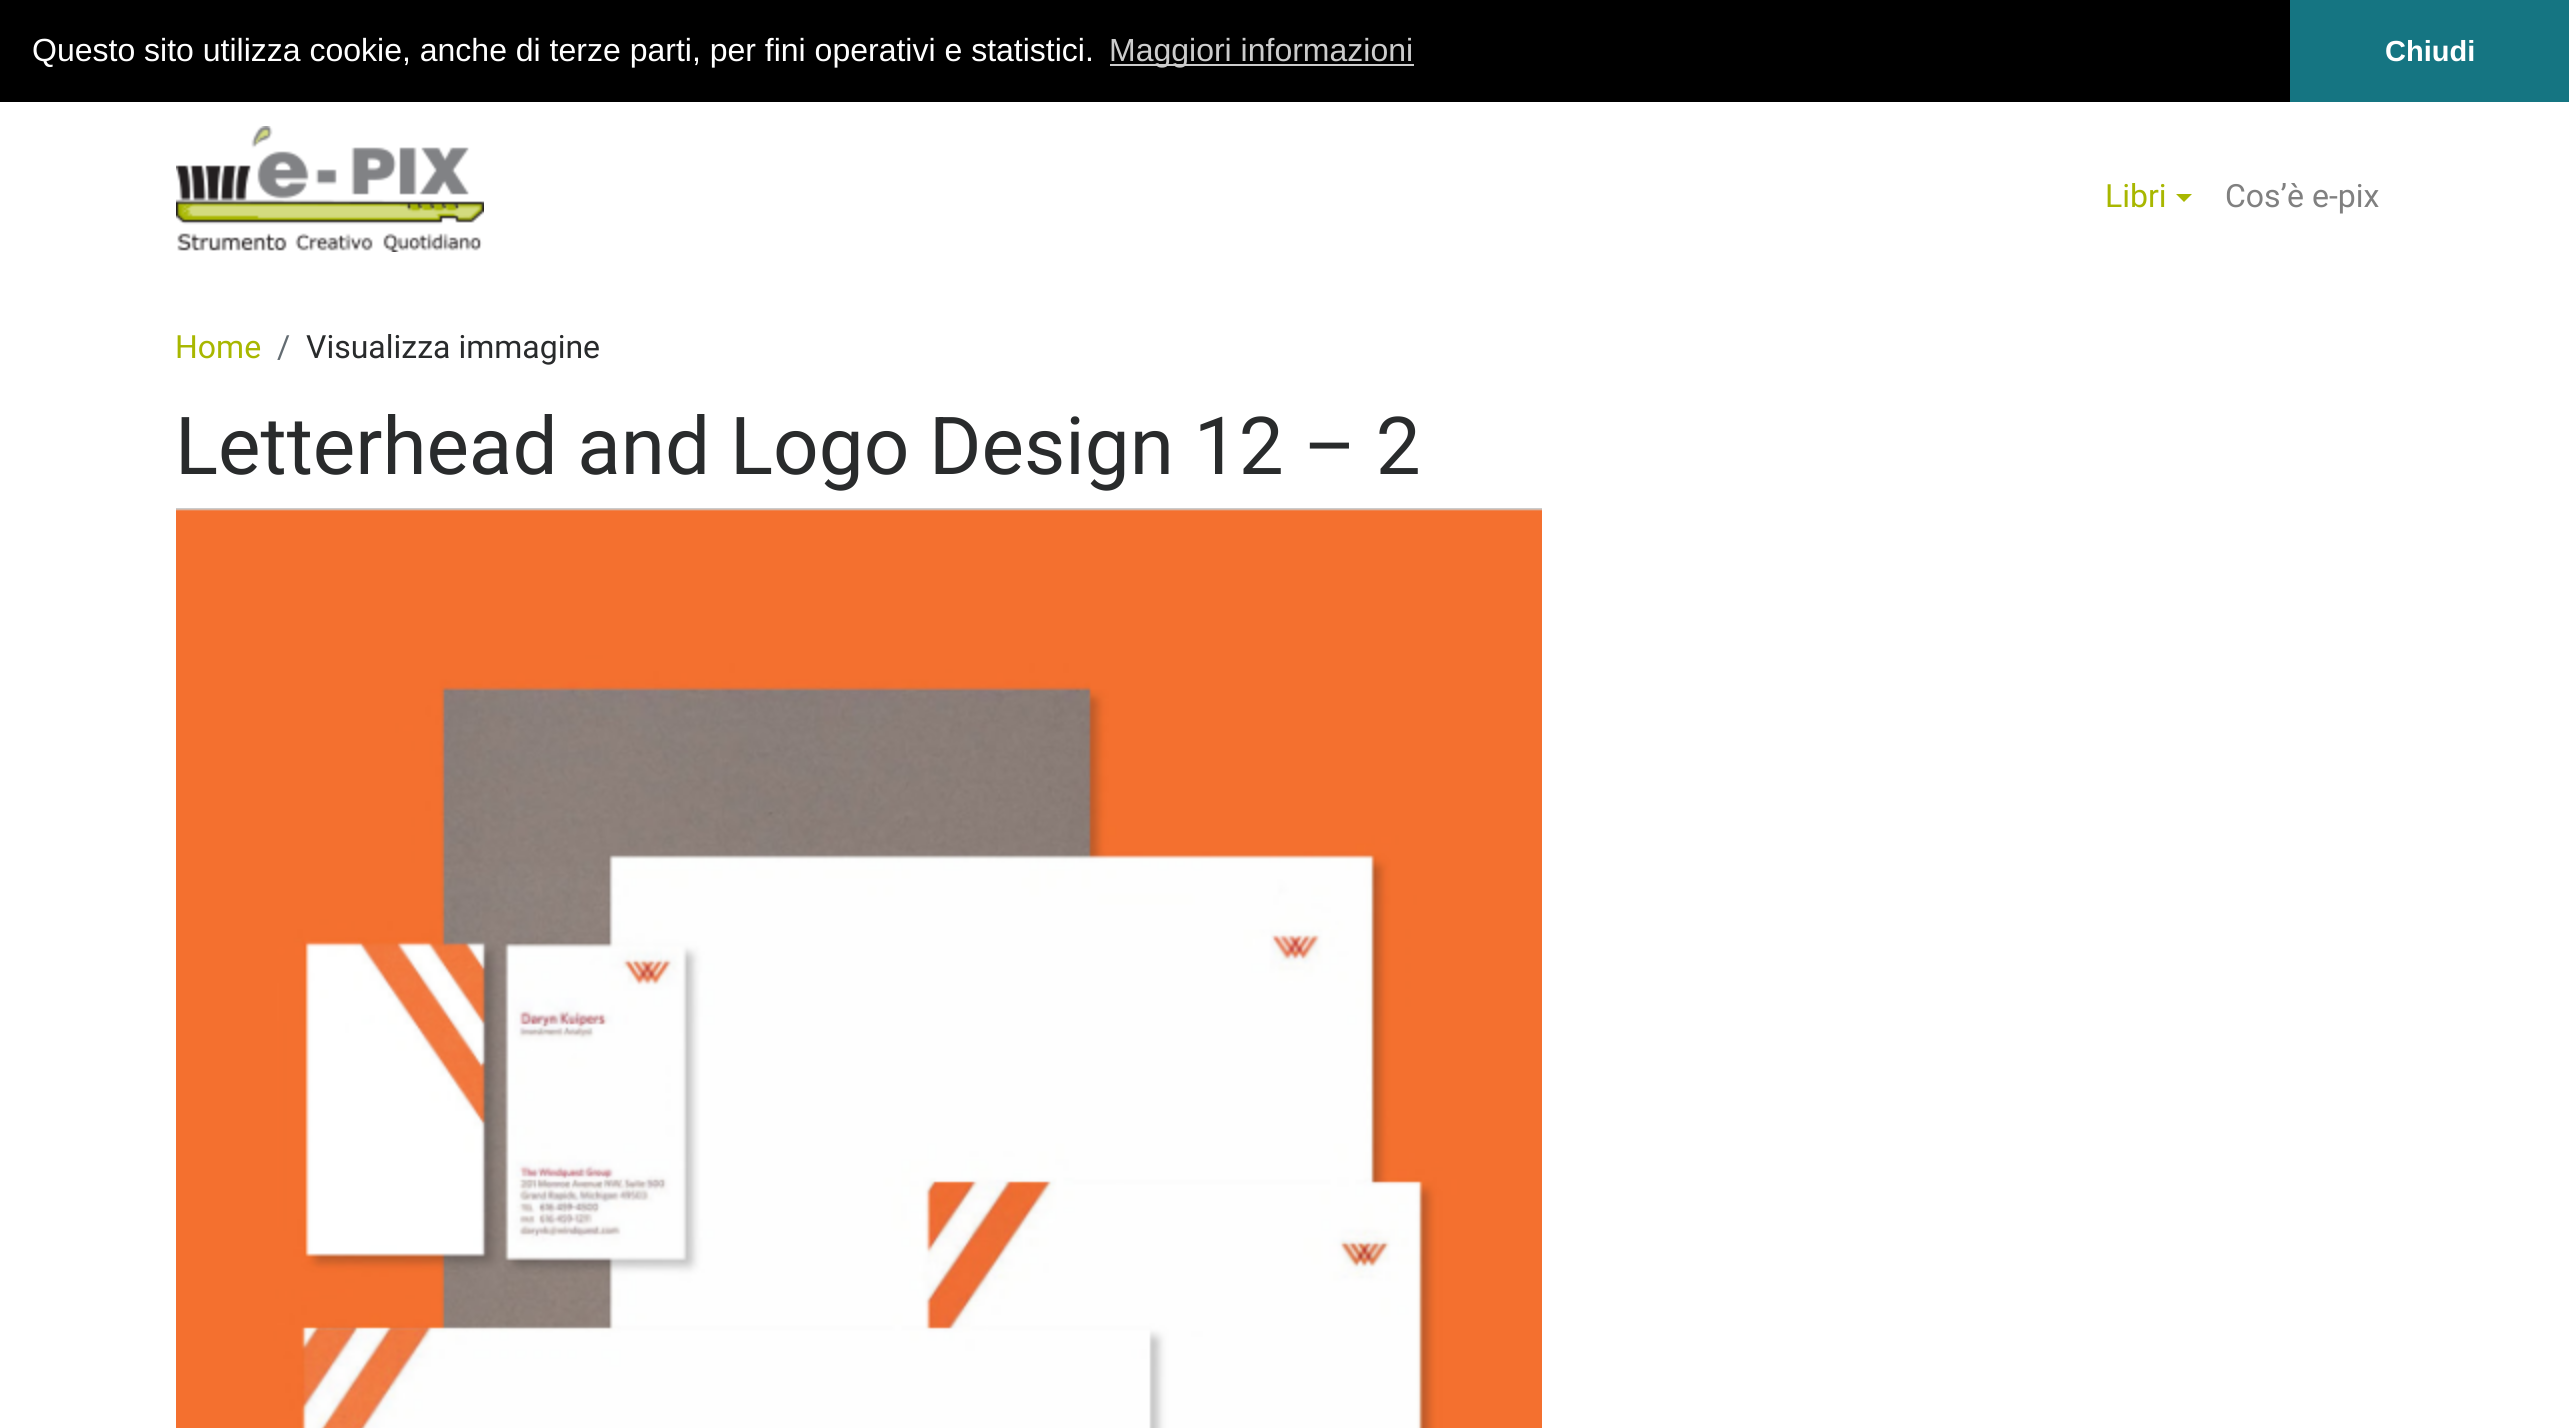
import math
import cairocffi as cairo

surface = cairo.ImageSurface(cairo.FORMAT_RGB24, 2569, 1428)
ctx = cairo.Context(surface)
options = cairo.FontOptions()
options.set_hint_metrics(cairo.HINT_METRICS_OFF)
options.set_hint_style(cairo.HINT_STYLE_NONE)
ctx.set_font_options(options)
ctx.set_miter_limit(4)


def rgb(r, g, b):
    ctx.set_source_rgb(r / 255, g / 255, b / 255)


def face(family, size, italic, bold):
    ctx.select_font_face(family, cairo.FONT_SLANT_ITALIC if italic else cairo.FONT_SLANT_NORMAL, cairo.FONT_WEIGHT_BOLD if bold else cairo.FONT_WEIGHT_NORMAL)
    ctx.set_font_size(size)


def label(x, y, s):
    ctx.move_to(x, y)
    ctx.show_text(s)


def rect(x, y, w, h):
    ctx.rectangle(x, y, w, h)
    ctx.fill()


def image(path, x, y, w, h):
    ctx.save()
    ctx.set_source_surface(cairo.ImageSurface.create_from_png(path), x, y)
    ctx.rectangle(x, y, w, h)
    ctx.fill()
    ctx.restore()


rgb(255, 255, 255)
ctx.paint()
rgb(0, 0, 0)
rect(0, 0, 2290, 102)
face('Liberation Sans', 32, 0, 0)
rgb(255, 255, 255)
label(32, 61, 'Questo sito utilizza cookie, anche di terze parti, per fini operativi e statistici.')
rgb(204, 204, 204)
rect(1110, 64, 304, 2)
label(1109, 61, 'Maggiori informazioni')
rgb(21, 117, 130)
rect(2290, 0, 279, 102)
face('Liberation Sans', 29, 0, 1)
rgb(255, 255, 255)
label(2385, 61, 'Chiudi')
image('image0.png', 176, 126, 308, 126)
face('Roboto', 32, 0, 0)
rgb(168, 183, 0)
label(2105, 207, 'Libri')
ctx.new_path()
ctx.move_to(2176, 194)
ctx.line_to(2192, 194)
ctx.line_to(2184, 202)
ctx.close_path()
ctx.fill()
rgb(128, 128, 128)
label(2225, 207, 'Cos’è e-pix')
rgb(168, 183, 0)
label(175, 358, 'Home')
rgb(99, 108, 114)
label(277, 358, '/')
rgb(41, 43, 44)
label(306, 358, 'Visualizza immagine')
face('Roboto', 80, 0, 0)
label(175, 474, 'Letterhead and Logo Design 12 – 2')
image('image1.png', 176, 508, 1366, 920)
surface.write_to_png('render.png')
